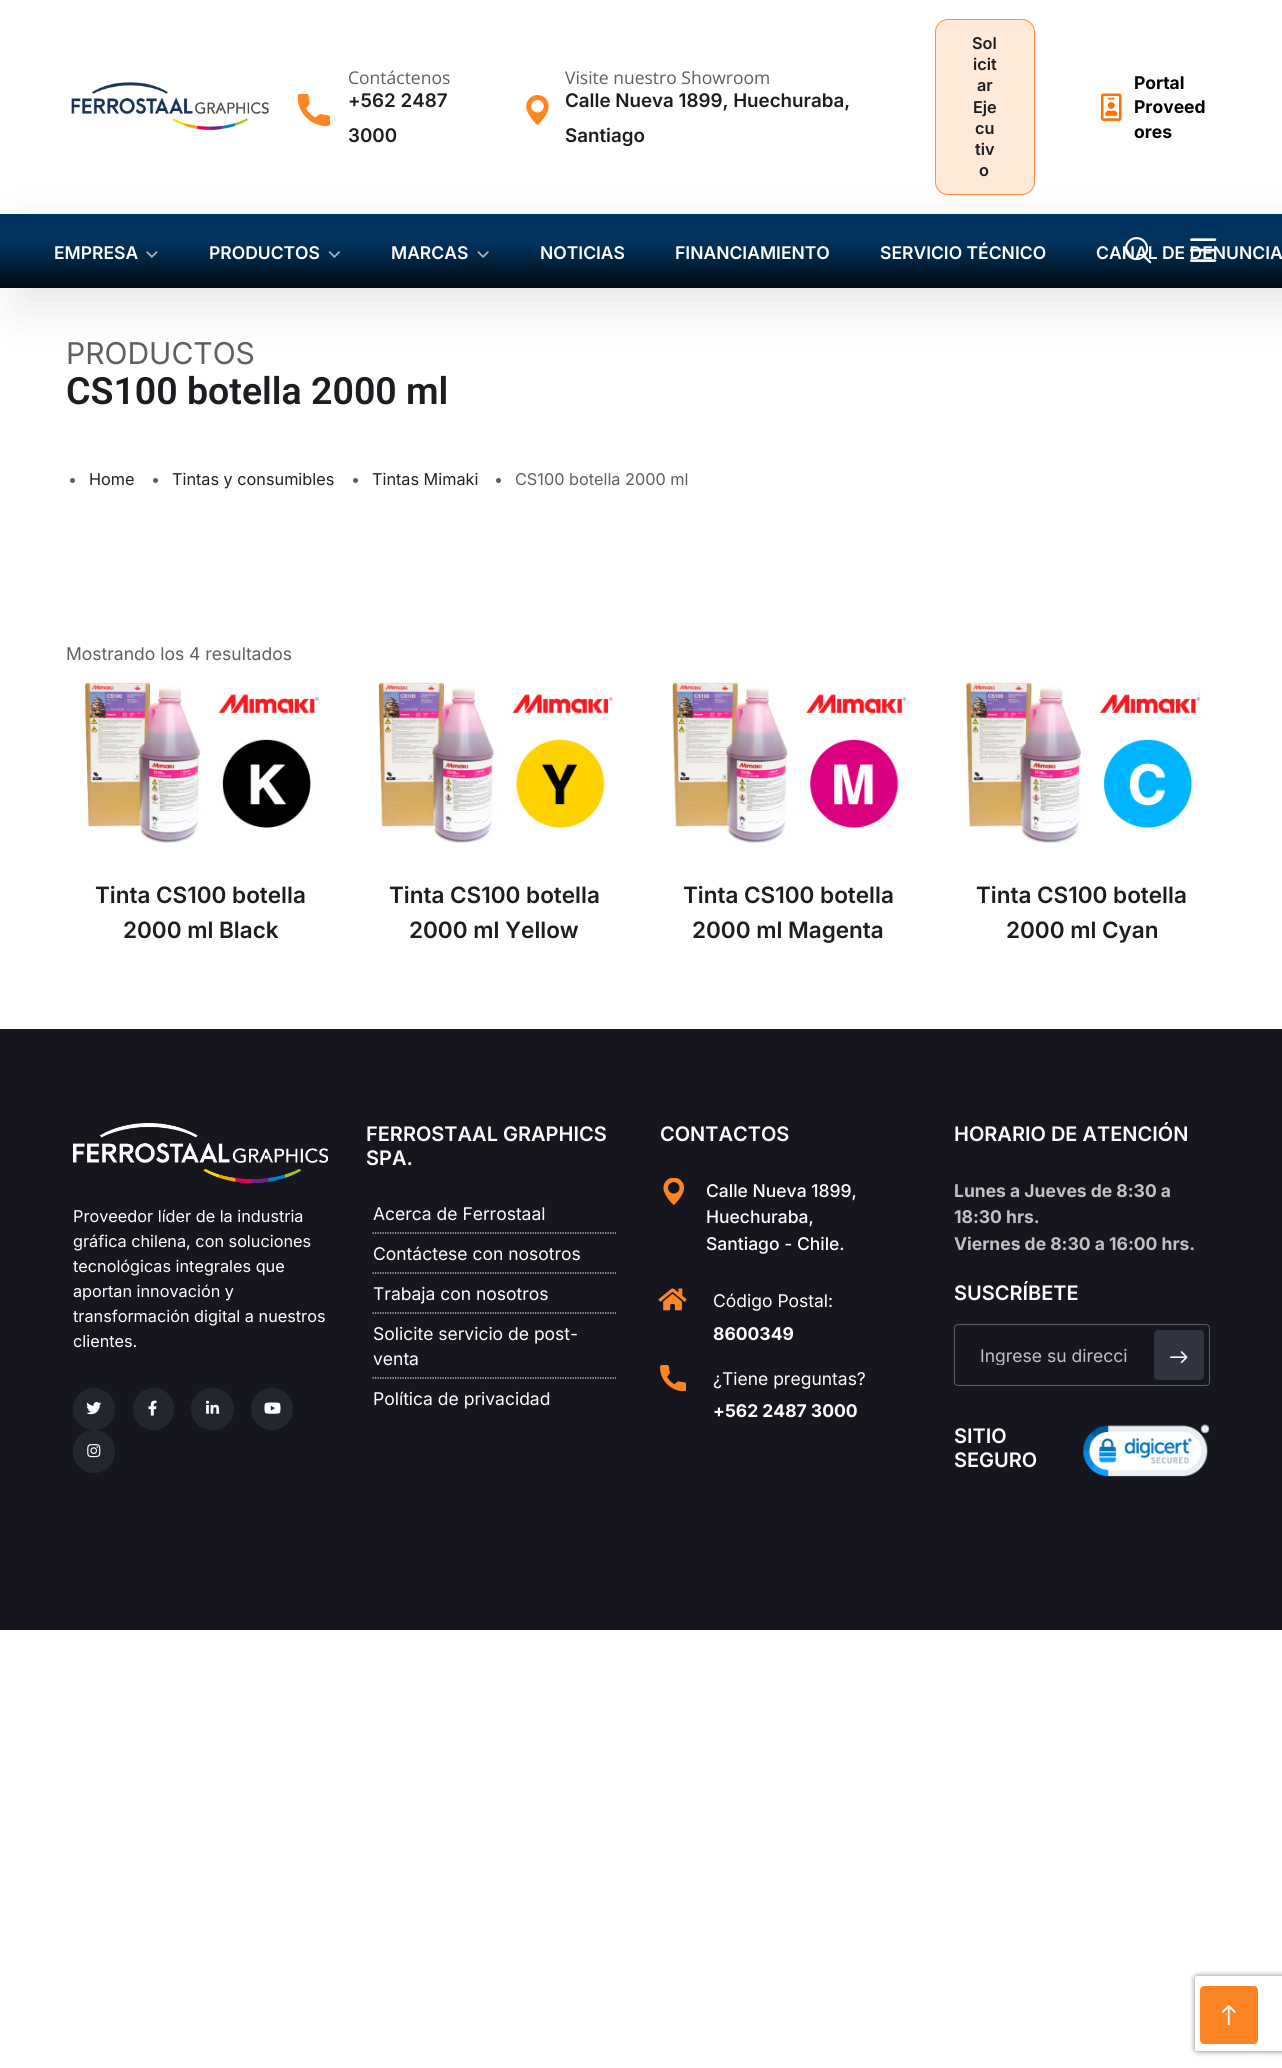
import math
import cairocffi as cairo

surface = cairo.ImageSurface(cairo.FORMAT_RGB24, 1282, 2068)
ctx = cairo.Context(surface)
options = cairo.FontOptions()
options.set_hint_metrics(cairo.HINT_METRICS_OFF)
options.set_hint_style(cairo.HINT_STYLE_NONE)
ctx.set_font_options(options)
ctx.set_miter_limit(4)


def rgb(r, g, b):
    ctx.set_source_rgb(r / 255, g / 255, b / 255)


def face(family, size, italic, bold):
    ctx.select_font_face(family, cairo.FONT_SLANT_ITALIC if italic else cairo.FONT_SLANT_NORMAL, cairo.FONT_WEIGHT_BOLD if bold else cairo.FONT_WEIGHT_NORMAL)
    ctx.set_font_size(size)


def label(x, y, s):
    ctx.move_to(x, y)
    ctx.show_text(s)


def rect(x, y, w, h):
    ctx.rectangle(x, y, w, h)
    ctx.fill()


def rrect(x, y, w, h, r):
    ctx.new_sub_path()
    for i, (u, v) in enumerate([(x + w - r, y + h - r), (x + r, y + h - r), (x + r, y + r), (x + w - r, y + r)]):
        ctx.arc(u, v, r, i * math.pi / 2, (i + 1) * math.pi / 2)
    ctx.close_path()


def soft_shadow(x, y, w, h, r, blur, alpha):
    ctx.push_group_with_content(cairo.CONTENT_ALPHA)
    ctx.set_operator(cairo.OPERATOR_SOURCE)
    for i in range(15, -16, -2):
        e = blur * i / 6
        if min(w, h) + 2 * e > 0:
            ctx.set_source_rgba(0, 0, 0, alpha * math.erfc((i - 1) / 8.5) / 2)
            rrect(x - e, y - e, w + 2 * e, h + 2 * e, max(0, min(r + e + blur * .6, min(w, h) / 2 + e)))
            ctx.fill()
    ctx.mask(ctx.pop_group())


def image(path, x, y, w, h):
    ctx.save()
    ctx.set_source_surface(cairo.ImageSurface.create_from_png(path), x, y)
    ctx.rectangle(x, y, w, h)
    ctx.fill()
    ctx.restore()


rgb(255, 255, 255)
ctx.paint()
image('image0.png', 71, 82, 198, 49)
image('image1.png', 298, 94, 32, 32)
face('Open Sans', 17.5, 0, 0)
rgb(95, 95, 95)
label(348, 84, 'Contáctenos')
face('Inter SemiBold', 18.75, 0, 0)
rgb(27, 29, 33)
label(348, 107, '+562 2487')
label(348, 142, '3000')
image('image2.png', 526, 95, 23, 30)
face('Open Sans', 17.5, 0, 0)
rgb(95, 95, 95)
label(565, 84, 'Visite nuestro Showroom')
face('Inter SemiBold', 18.75, 0, 0)
rgb(27, 29, 33)
label(565, 107, 'Calle Nueva 1899, Huechuraba,')
label(565, 142, 'Santiago')
rgb(255, 234, 218)
rrect(935.5, 19.5, 99, 175, 12.5)
ctx.fill_preserve()
rgb(255, 143, 62)
ctx.set_line_width(1)
ctx.stroke()
face('Inter SemiBold', 16.25, 0, 0)
rgb(27, 29, 33)
label(972, 49, 'Sol')
label(973, 70, 'icit')
label(977, 91, 'ar')
label(973, 113, 'Eje')
label(975, 134, 'cu')
label(975, 155, 'tiv')
label(979, 176, 'o')
image('image3.png', 1100, 93, 22, 28)
face('Inter', 17.5, 0, 1)
rgb(0, 0, 0)
label(1134, 89, 'Portal')
label(1134, 113, 'Proveed')
label(1134, 138, 'ores')
rgb(0, 0, 0)
soft_shadow(19, 233, 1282, 73, 0, 24, 0.1)
gradient = cairo.LinearGradient(641, 214, 641, 288)
gradient.add_color_stop_rgba(0.38, 0, 0.2, 0.365, 1)
gradient.add_color_stop_rgba(1, 0, 0.043, 0.078, 1)
ctx.set_source(gradient)
rect(0, 214, 1282, 74)
image('image4.png', 1125, 237, 27, 27)
image('image5.png', 1190, 238, 27, 24)
face('Inter SemiBold', 17.5, 0, 0)
rgb(255, 255, 255)
label(54, 259, 'EMPRESA')
image('image6.png', 146, 251, 12, 7)
label(209, 259, 'PRODUCTOS')
image('image7.png', 328, 251, 12, 7)
label(391, 259, 'MARCAS')
image('image8.png', 477, 251, 12, 7)
label(540, 259, 'NOTICIAS')
label(675, 259, 'FINANCIAMIENTO')
label(880, 259, 'SERVICIO TÉCNICO')
label(1096, 259, 'CANAL DE DENUNCIA')
face('Inter', 30, 0, 0)
rgb(95, 95, 95)
label(66, 364, 'PRODUCTOS')
face('Roboto SemiBold', 37.5, 0, 0)
rgb(27, 29, 33)
label(66, 404, 'CS100 botella 2000 ml')
rgb(95, 95, 95)
ctx.new_path()
ctx.arc(72.5, 480.5, 2.5, 0, 2 * math.pi)
ctx.fill()
face('Inter', 16.25, 0, 0)
rgb(34, 34, 34)
label(89, 485, 'Home')
rgb(95, 95, 95)
ctx.new_path()
ctx.arc(155.5, 480.5, 2.5, 0, 2 * math.pi)
ctx.fill()
rgb(34, 34, 34)
label(172, 485, 'Tintas y consumibles')
rgb(95, 95, 95)
ctx.new_path()
ctx.arc(355.5, 480.5, 2.5, 0, 2 * math.pi)
ctx.fill()
rgb(34, 34, 34)
label(372, 485, 'Tintas Mimaki')
rgb(95, 95, 95)
ctx.new_path()
ctx.arc(498.5, 480.5, 2.5, 0, 2 * math.pi)
ctx.fill()
label(515, 485, 'CS100 botella 2000 ml')
face('Inter', 17.5, 0, 0)
label(66, 660, 'Mostrando los 4 resultados')
image('image9.png', 84, 682, 235, 162)
face('Inter SemiBold', 22.5, 0, 0)
rgb(27, 29, 33)
label(95, 903, 'Tinta CS100 botella')
label(123, 938, '2000 ml Black')
image('image10.png', 378, 682, 235, 162)
label(389, 903, 'Tinta CS100 botella')
label(409, 938, '2000 ml Yellow')
image('image11.png', 672, 682, 235, 162)
label(683, 903, 'Tinta CS100 botella')
label(692, 938, '2000 ml Magenta')
image('image12.png', 965, 682, 236, 162)
label(976, 903, 'Tinta CS100 botella')
label(1006, 938, '2000 ml Cyan')
rgb(22, 23, 30)
rect(0, 1029, 1282, 601)
image('image13.png', 73, 1123, 255, 60)
face('Inter', 16.25, 0, 0)
rgb(255, 255, 255)
label(73, 1222, 'Proveedor líder de la industria')
label(73, 1247, 'gráfica chilena, con soluciones')
label(73, 1272, 'tecnológicas integrales que')
label(73, 1297, 'aportan innovación y')
label(73, 1322, 'transformación digital a nuestros')
label(73, 1347, 'clientes.')
rgb(36, 38, 47)
ctx.new_path()
ctx.arc(94, 1409, 21, 0, 2 * math.pi)
ctx.fill()
image('image14.png', 86, 1402, 16, 13)
rrect(133, 1388, 41, 42, 20.5)
ctx.fill()
image('image15.png', 148, 1400, 9, 16)
rrect(191, 1388, 43, 42, 21)
ctx.fill()
image('image16.png', 206, 1400, 14, 14)
ctx.arc(272, 1409, 21, 0, 2 * math.pi)
ctx.fill()
image('image17.png', 264, 1402, 17, 12)
rrect(73, 1430, 42, 43, 21)
ctx.fill()
image('image18.png', 87, 1444, 14, 14)
face('Inter SemiBold', 20, 0, 0)
rgb(255, 255, 255)
label(366, 1141, 'FERROSTAAL GRAPHICS')
label(366, 1165, 'SPA.')
face('Inter', 17.5, 0, 0)
label(373, 1220, 'Acerca de Ferrostaal')
ctx.new_path()
ctx.move_to(372.5, 1233)
ctx.line_to(616, 1233)
rgb(221, 221, 221)
ctx.set_line_width(1.2)
ctx.set_dash([1.25, 1.25])
ctx.stroke()
rgb(255, 255, 255)
label(373, 1260, 'Contáctese con nosotros')
ctx.new_path()
ctx.move_to(372.5, 1273)
ctx.line_to(616, 1273)
rgb(221, 221, 221)
ctx.stroke()
rgb(255, 255, 255)
label(373, 1300, 'Trabaja con nosotros')
ctx.new_path()
ctx.move_to(372.5, 1313)
ctx.line_to(616, 1313)
rgb(221, 221, 221)
ctx.stroke()
rgb(255, 255, 255)
label(373, 1340, 'Solicite servicio de post-')
label(373, 1365, 'venta')
ctx.new_path()
ctx.move_to(372.5, 1378)
ctx.line_to(616, 1378)
rgb(221, 221, 221)
ctx.stroke()
rgb(255, 255, 255)
label(373, 1405, 'Política de privacidad')
face('Inter SemiBold', 20, 0, 0)
label(660, 1141, 'CONTACTOS')
image('image19.png', 663, 1178, 22, 27)
face('Inter Medium', 17.5, 0, 0)
label(706, 1197, 'Calle Nueva 1899,')
label(706, 1223, 'Huechuraba,')
label(706, 1250, 'Santiago - Chile.')
image('image20.png', 658, 1288, 29, 23)
face('Inter', 17.5, 0, 0)
label(713, 1307, 'Código Postal:')
face('Inter', 17.5, 0, 1)
label(713, 1340, '8600349')
image('image21.png', 660, 1365, 26, 26)
face('Inter', 17.5, 0, 0)
label(713, 1385, '¿Tiene preguntas?')
face('Inter', 17.5, 0, 1)
label(713, 1417, '+562 2487 3000')
face('Inter SemiBold', 20, 0, 0)
label(954, 1141, 'HORARIO DE ATENCIÓN')
face('Inter', 17.5, 0, 1)
rgb(192, 193, 194)
label(954, 1197, 'Lunes a Jueves de 8:30 a')
label(954, 1223, '18:30 hrs.')
label(954, 1250, 'Viernes de 8:30 a 16:00 hrs.')
face('Inter SemiBold', 20, 0, 0)
rgb(255, 255, 255)
label(954, 1300, 'SUSCRÍBETE')
rrect(954.5, 1324.5, 255, 61, 3.5)
rgb(92, 93, 98)
ctx.set_line_width(1)
ctx.set_dash([])
ctx.stroke()
ctx.save()
ctx.rectangle(980, 1344, 148, 21)
ctx.clip()
face('Inter', 17.5, 0, 0)
rgb(192, 193, 194)
label(980, 1362, 'Ingrese su direcci')
ctx.restore()
rgb(49, 51, 63)
rrect(1154, 1330, 50, 50, 4)
ctx.fill()
image('image22.png', 1170, 1351, 18, 13)
rgb(255, 255, 255)
label(954, 1443, 'SITIO')
label(954, 1467, 'SEGURO')
image('image23.png', 1082, 1424, 128, 53)
ctx.save()
ctx.set_fill_rule(cairo.FILL_RULE_EVEN_ODD)
ctx.new_path()
ctx.move_to(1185, 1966)
ctx.line_to(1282, 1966)
ctx.line_to(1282, 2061)
ctx.line_to(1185, 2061)
ctx.close_path()
ctx.move_to(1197.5, 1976)
ctx.line_to(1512.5, 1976)
ctx.curve_to(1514, 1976, 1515, 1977, 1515, 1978.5)
ctx.line_to(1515, 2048.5)
ctx.curve_to(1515, 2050, 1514, 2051, 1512.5, 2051)
ctx.line_to(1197.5, 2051)
ctx.curve_to(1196, 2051, 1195, 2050, 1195, 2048.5)
ctx.line_to(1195, 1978.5)
ctx.curve_to(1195, 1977, 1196, 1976, 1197.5, 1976)
ctx.close_path()
ctx.clip()
rgb(128, 128, 128)
soft_shadow(1195, 1976, 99, 75, 2.5, 3, 1)
ctx.restore()
rgb(254, 132, 35)
ctx.new_path()
ctx.move_to(1258, 1990)
ctx.line_to(1258, 2040)
ctx.curve_to(1258, 2042, 1256, 2044, 1254, 2044)
ctx.line_to(1204, 2044)
ctx.curve_to(1202, 2044, 1200, 2042, 1200, 2040)
ctx.line_to(1200, 1990)
ctx.curve_to(1200, 1988, 1202, 1986, 1204, 1986)
ctx.line_to(1254, 1986)
ctx.curve_to(1256, 1986, 1258, 1988, 1258, 1990)
ctx.close_path()
ctx.fill()
image('image24.png', 1221, 2005, 15, 20)
surface.write_to_png('render.png')
